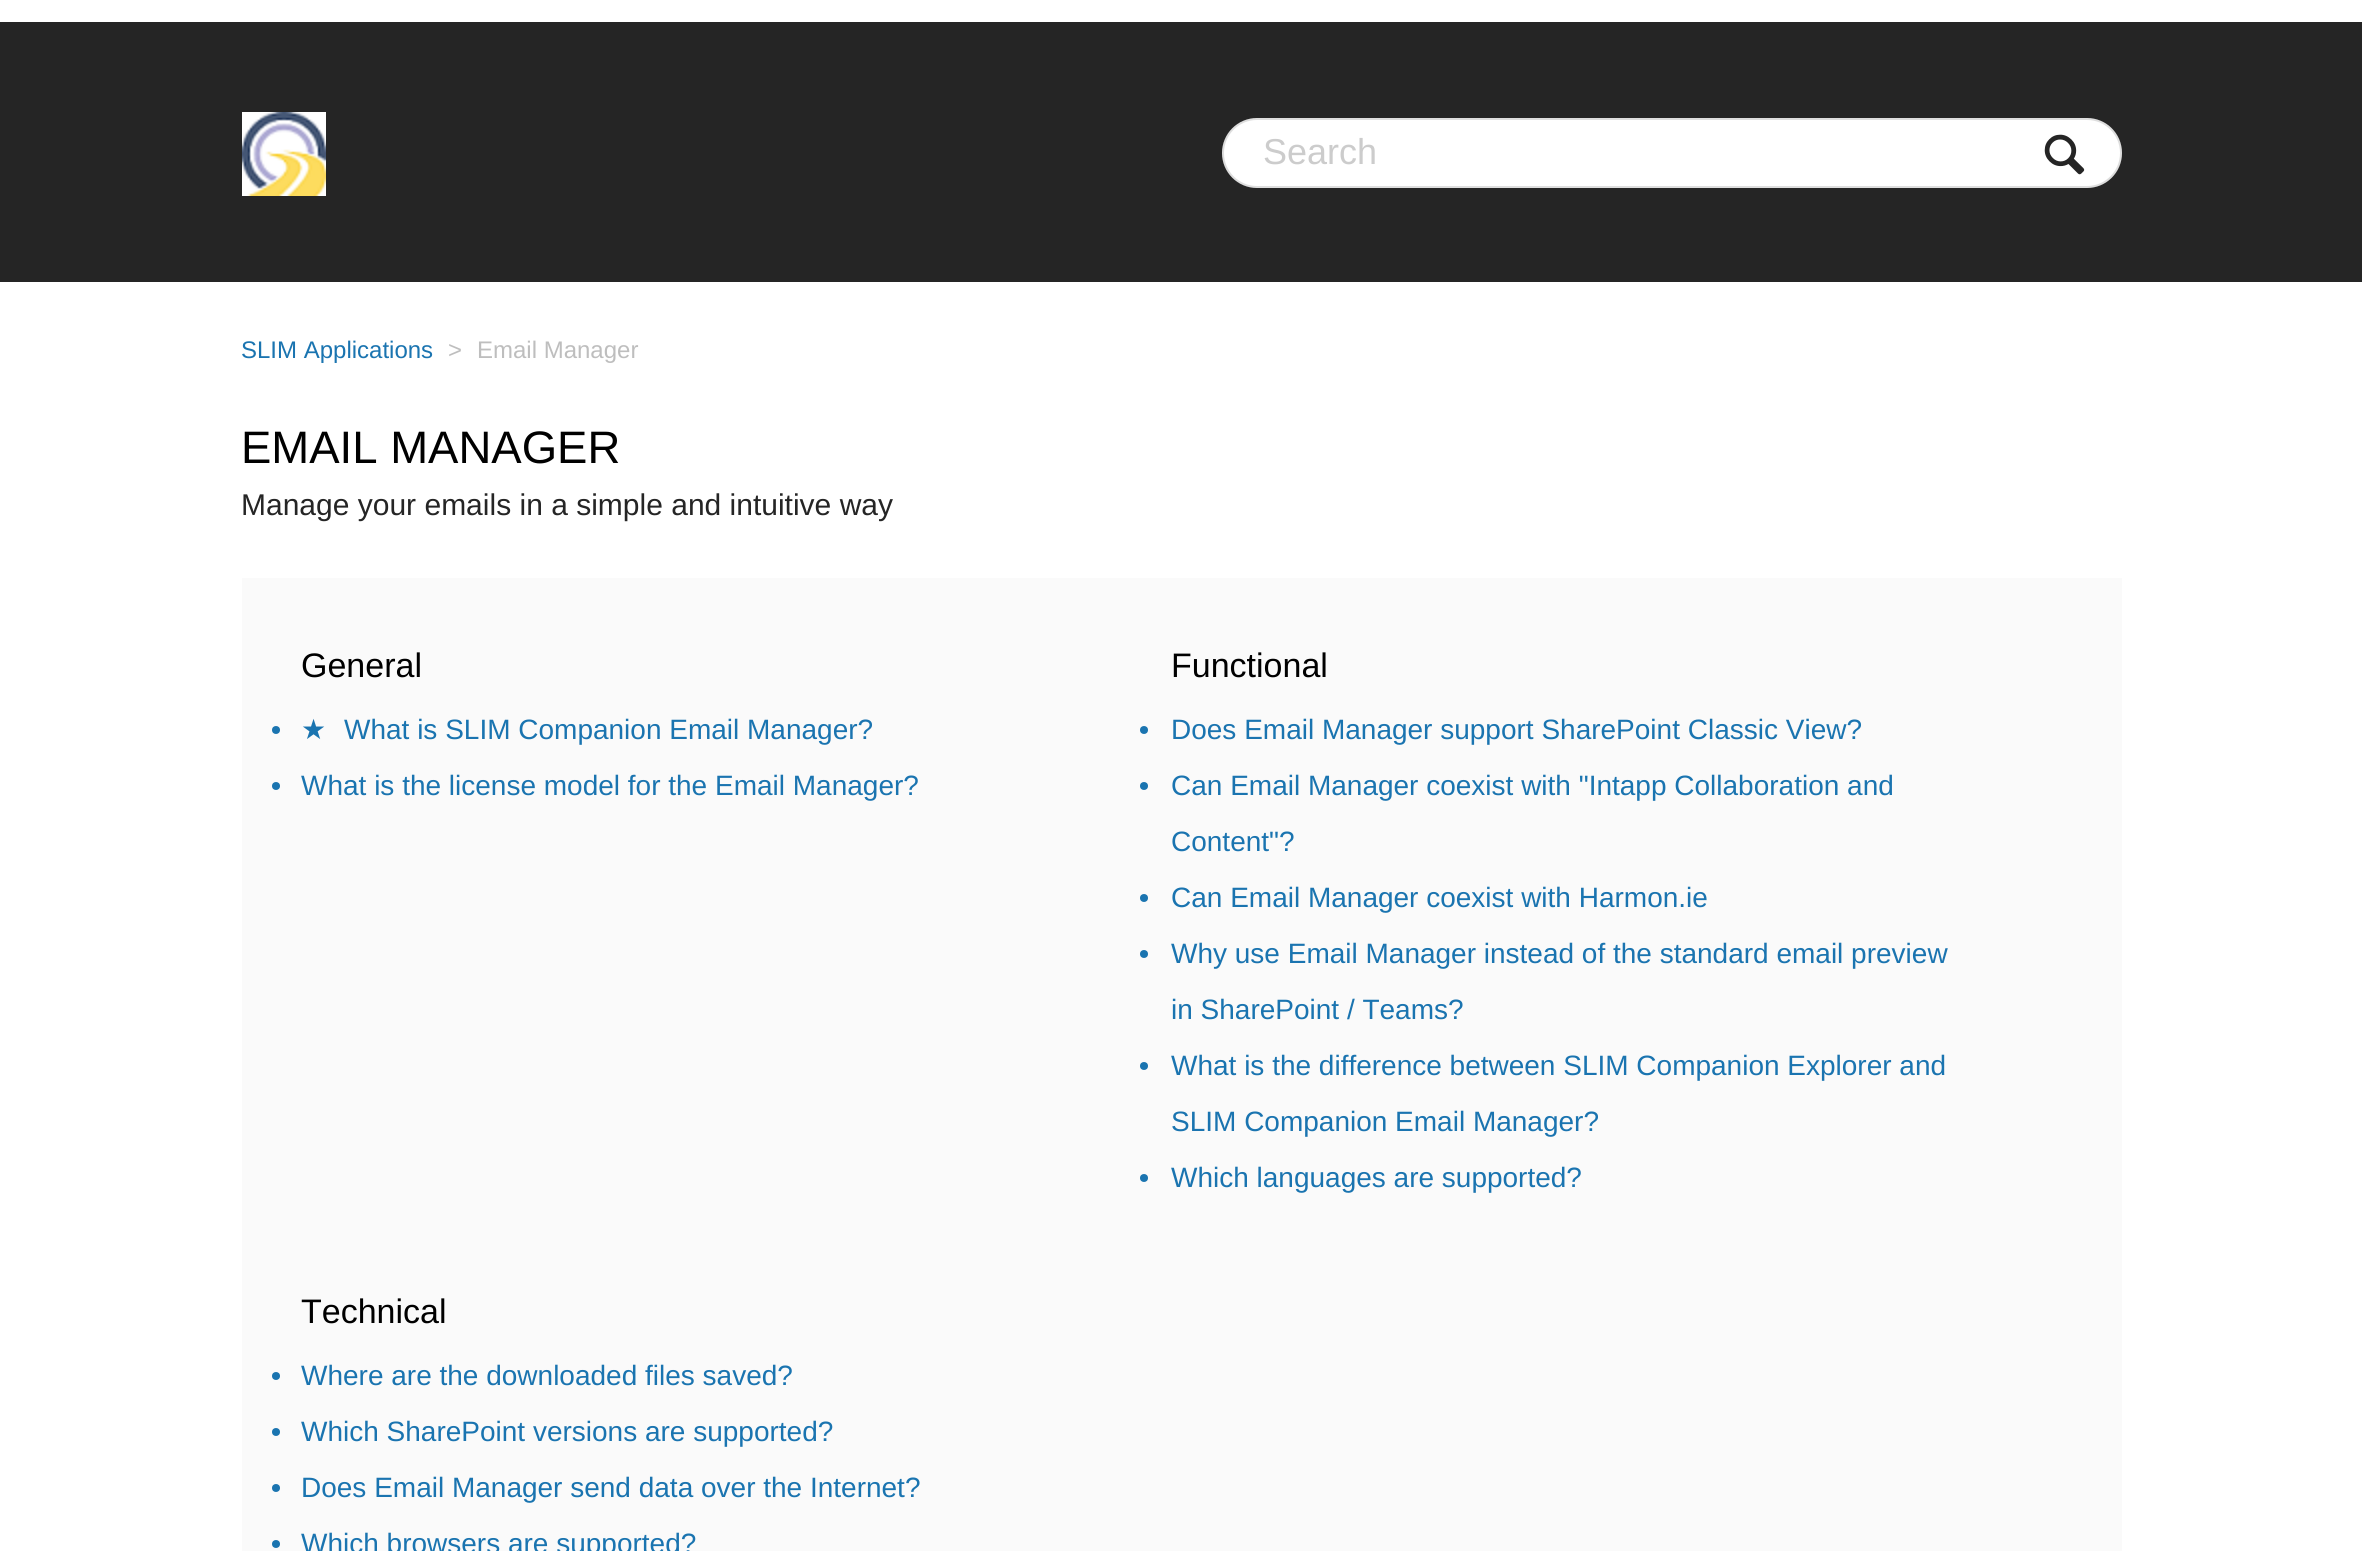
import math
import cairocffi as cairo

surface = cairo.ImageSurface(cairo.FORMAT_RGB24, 2362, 1551)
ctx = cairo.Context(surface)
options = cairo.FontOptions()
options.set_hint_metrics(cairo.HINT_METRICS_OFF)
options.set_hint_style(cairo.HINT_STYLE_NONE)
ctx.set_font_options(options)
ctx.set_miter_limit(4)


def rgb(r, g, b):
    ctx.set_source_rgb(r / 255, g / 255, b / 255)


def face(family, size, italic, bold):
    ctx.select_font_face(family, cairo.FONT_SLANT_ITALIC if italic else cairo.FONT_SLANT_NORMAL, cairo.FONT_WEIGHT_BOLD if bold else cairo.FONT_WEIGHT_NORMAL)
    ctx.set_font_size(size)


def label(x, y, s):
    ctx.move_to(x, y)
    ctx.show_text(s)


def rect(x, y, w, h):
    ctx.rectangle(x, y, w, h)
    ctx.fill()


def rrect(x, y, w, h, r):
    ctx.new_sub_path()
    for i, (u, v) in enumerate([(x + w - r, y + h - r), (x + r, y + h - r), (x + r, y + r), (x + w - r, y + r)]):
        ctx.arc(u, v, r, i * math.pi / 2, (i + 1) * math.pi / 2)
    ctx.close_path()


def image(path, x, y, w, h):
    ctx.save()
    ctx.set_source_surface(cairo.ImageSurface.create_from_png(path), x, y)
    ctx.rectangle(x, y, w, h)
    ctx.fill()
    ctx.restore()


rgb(255, 255, 255)
ctx.paint()
rgb(37, 37, 37)
rect(0, 22, 2362, 260)
image('image0.png', 242, 112, 84, 84)
rgb(255, 255, 255)
rrect(1222, 118, 900, 70, 35)
ctx.fill()
rrect(1223, 119, 898, 68, 34)
ctx.set_source_rgba(0, 0, 0, 0.13)
ctx.stroke()
face('Liberation Sans', 36, 0, 0)
rgb(204, 204, 204)
label(1263, 164, 'Search')
image('image1.png', 2044, 134, 41, 41)
face('Liberation Sans', 24, 0, 0)
rgb(26, 116, 176)
label(241, 358, 'SLIM Applications')
rgb(190, 190, 190)
label(448, 358, '>')
label(477, 358, 'Email Manager')
face('Liberation Sans', 45.5, 0, 0)
rgb(0, 0, 0)
label(241, 463, 'EMAIL MANAGER')
face('Liberation Sans', 30, 0, 0)
rgb(37, 37, 37)
label(241, 515, 'Manage your emails in a simple and intuitive way')
rgb(250, 250, 250)
rect(242, 578, 1880, 973)
face('Liberation Sans', 34, 0, 0)
rgb(0, 0, 0)
label(301, 677, 'General')
rgb(26, 116, 176)
ctx.new_path()
ctx.arc(276, 730, 4, 0, 2 * math.pi)
ctx.fill()
face('DejaVu Sans', 28, 0, 0)
label(301, 739, '★')
face('Liberation Sans', 28, 0, 0)
label(344, 739, 'What is SLIM Companion Email Manager?')
ctx.new_path()
ctx.arc(276, 786, 4, 0, 2 * math.pi)
ctx.fill()
label(301, 795, 'What is the license model for the Email Manager?')
face('Liberation Sans', 34, 0, 0)
rgb(0, 0, 0)
label(1171, 677, 'Functional')
rgb(26, 116, 176)
ctx.new_path()
ctx.arc(1144, 730, 4, 0, 2 * math.pi)
ctx.fill()
face('Liberation Sans', 28, 0, 0)
label(1171, 739, 'Does Email Manager support SharePoint Classic View?')
ctx.new_path()
ctx.arc(1144, 786, 4, 0, 2 * math.pi)
ctx.fill()
label(1171, 795, 'Can Email Manager coexist with "Intapp Collaboration and')
label(1171, 851, 'Content"?')
ctx.new_path()
ctx.arc(1144, 898, 4, 0, 2 * math.pi)
ctx.fill()
label(1171, 907, 'Can Email Manager coexist with Harmon.ie')
ctx.new_path()
ctx.arc(1144, 954, 4, 0, 2 * math.pi)
ctx.fill()
label(1171, 963, 'Why use Email Manager instead of the standard email preview')
label(1171, 1019, 'in SharePoint / Teams?')
ctx.new_path()
ctx.arc(1144, 1066, 4, 0, 2 * math.pi)
ctx.fill()
label(1171, 1075, 'What is the difference between SLIM Companion Explorer and')
label(1171, 1131, 'SLIM Companion Email Manager?')
ctx.new_path()
ctx.arc(1144, 1178, 4, 0, 2 * math.pi)
ctx.fill()
label(1171, 1187, 'Which languages are supported?')
face('Liberation Sans', 34, 0, 0)
rgb(0, 0, 0)
label(301, 1323, 'Technical')
rgb(26, 116, 176)
ctx.new_path()
ctx.arc(276, 1376, 4, 0, 2 * math.pi)
ctx.fill()
face('Liberation Sans', 28, 0, 0)
label(301, 1385, 'Where are the downloaded files saved?')
ctx.new_path()
ctx.arc(276, 1432, 4, 0, 2 * math.pi)
ctx.fill()
label(301, 1441, 'Which SharePoint versions are supported?')
ctx.new_path()
ctx.arc(276, 1488, 4, 0, 2 * math.pi)
ctx.fill()
label(301, 1497, 'Does Email Manager send data over the Internet?')
ctx.new_path()
ctx.arc(276, 1544, 4, 0, 2 * math.pi)
ctx.fill()
label(301, 1553, 'Which browsers are supported?')
surface.write_to_png('render.png')
